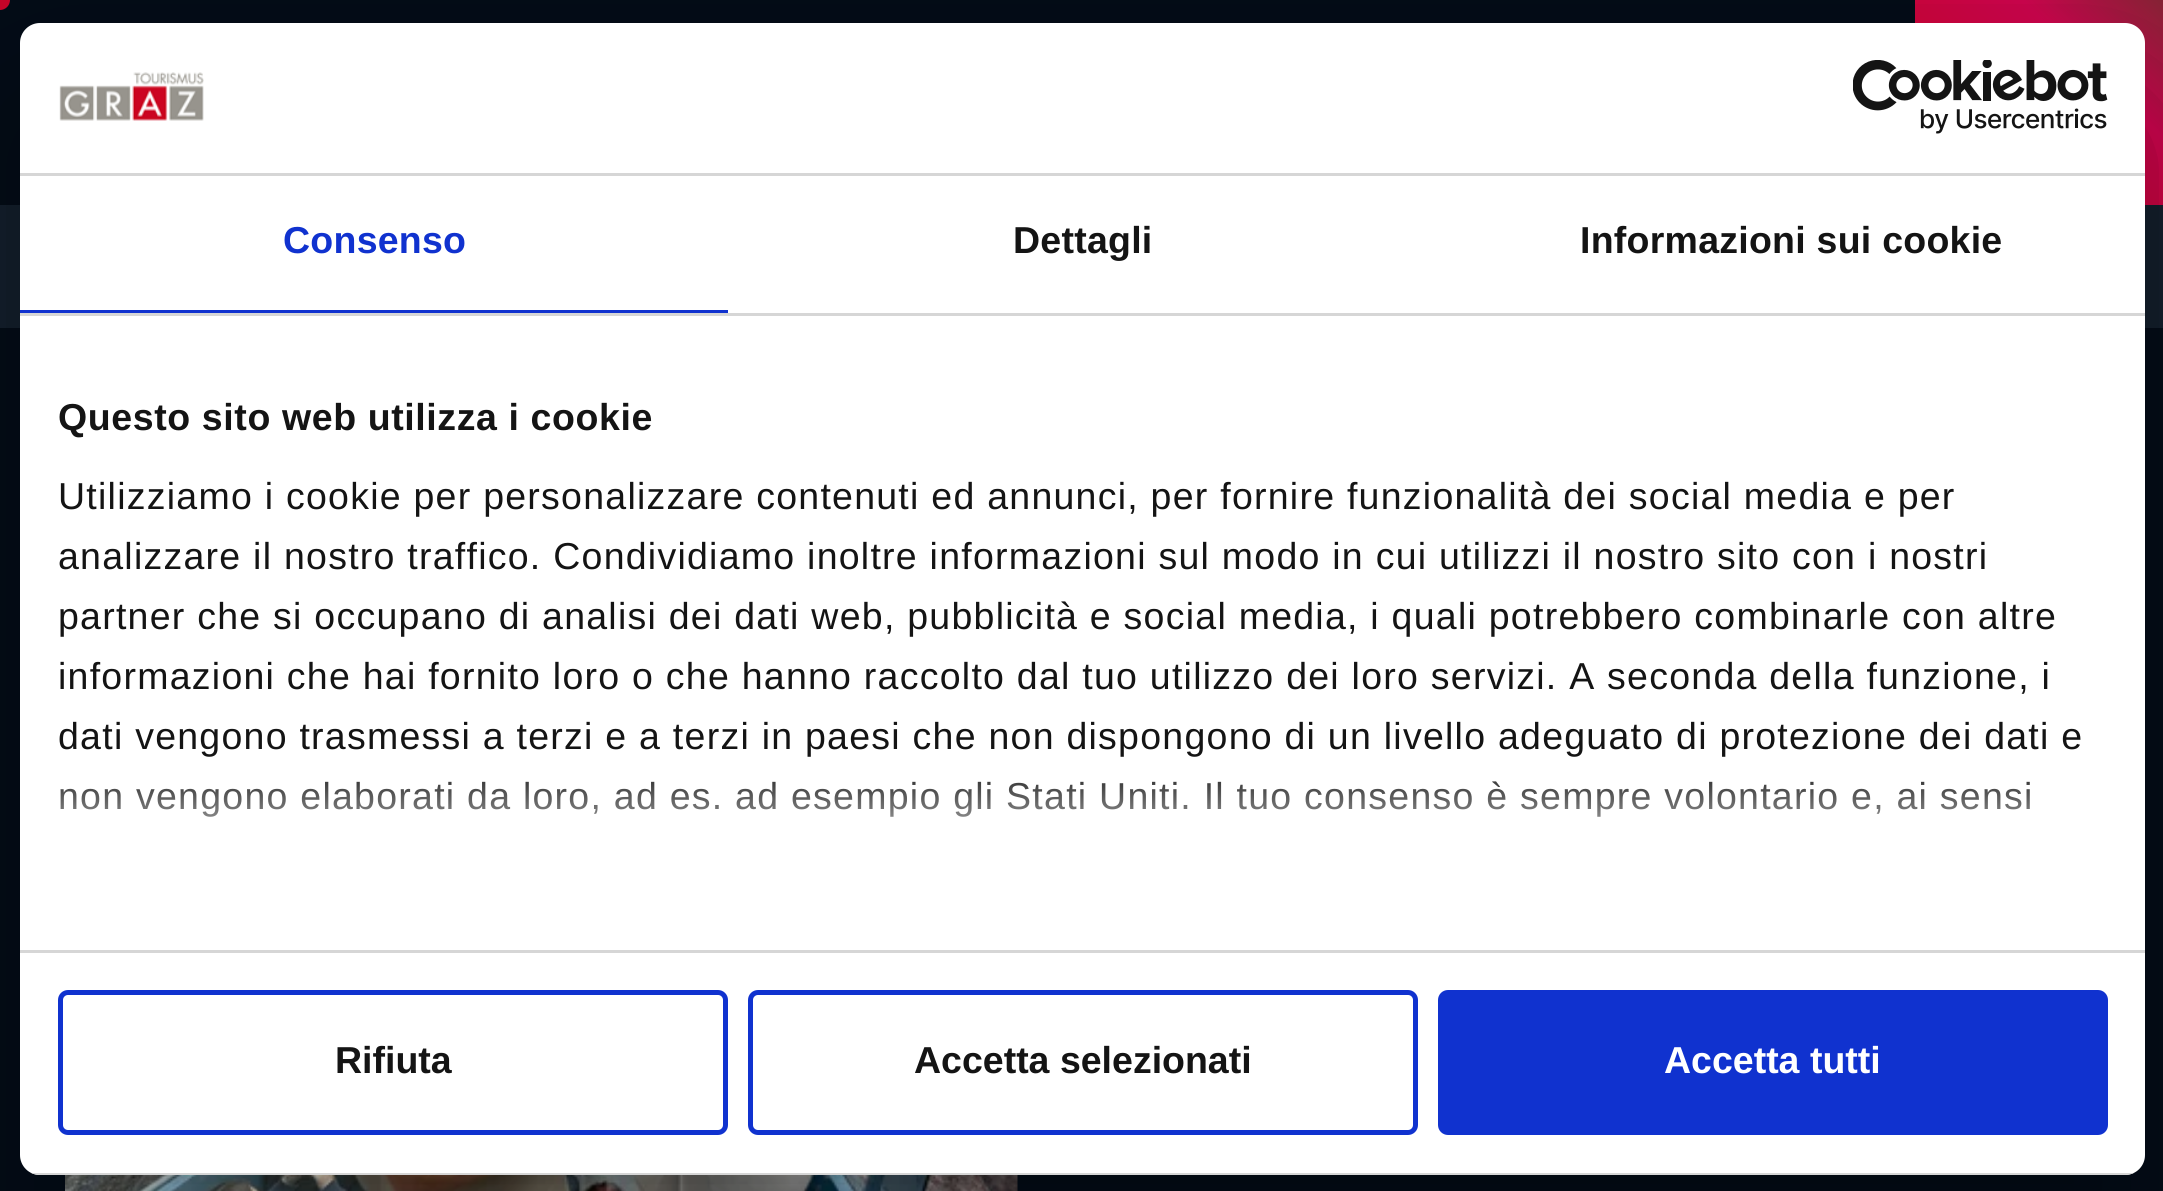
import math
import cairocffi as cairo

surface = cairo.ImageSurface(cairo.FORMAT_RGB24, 2163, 1191)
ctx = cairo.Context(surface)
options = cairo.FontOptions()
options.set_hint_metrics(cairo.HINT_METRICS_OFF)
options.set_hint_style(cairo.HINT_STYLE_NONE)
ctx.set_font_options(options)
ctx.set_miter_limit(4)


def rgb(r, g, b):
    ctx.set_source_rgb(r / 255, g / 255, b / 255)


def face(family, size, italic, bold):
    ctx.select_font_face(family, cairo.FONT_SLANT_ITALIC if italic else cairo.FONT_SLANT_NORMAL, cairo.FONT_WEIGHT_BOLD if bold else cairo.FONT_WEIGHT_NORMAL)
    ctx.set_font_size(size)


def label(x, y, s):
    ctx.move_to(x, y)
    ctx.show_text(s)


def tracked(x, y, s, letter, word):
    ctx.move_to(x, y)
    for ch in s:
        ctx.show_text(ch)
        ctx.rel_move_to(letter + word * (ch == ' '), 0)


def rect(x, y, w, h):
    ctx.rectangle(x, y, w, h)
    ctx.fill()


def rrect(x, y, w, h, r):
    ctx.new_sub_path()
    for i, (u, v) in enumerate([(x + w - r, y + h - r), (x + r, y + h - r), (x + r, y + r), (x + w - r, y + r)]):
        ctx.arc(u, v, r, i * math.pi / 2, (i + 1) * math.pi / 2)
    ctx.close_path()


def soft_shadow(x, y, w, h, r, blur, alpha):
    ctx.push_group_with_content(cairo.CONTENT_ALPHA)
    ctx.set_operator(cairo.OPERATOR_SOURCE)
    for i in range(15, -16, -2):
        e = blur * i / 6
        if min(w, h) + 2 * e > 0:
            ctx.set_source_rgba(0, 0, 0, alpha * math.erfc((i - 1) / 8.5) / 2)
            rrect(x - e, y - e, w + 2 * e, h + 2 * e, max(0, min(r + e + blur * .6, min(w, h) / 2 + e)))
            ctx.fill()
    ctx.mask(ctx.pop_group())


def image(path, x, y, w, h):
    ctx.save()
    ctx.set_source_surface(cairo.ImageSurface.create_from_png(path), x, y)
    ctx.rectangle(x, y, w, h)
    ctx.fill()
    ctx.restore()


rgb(3, 12, 23)
ctx.paint()
rgb(204, 4, 41)
ctx.arc(0, 0, 10, 0, 2 * math.pi)
ctx.fill()
gradient = cairo.LinearGradient(2152, -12, 1928, 217)
gradient.add_color_stop_rgba(0, 0.533, 0.141, 0.212, 1)
gradient.add_color_stop_rgba(0.31, 0.8, 0.016, 0.302, 1)
gradient.add_color_stop_rgba(1, 0.8, 0.016, 0.133, 1)
ctx.set_source(gradient)
rect(1915, 0, 248, 205)
rgb(19, 30, 44)
rect(0, 205, 2163, 123)
image('image0.png', 65, 1175, 953, 16)
ctx.save()
ctx.set_fill_rule(cairo.FILL_RULE_EVEN_ODD)
ctx.new_path()
ctx.move_to(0, 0)
ctx.line_to(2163, 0)
ctx.line_to(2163, 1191)
ctx.line_to(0, 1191)
ctx.close_path()
ctx.move_to(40, 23)
ctx.line_to(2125, 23)
ctx.curve_to(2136, 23, 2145, 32, 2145, 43)
ctx.line_to(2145, 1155)
ctx.curve_to(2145, 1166, 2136, 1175, 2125, 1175)
ctx.line_to(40, 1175)
ctx.curve_to(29, 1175, 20, 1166, 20, 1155)
ctx.line_to(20, 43)
ctx.curve_to(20, 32, 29, 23, 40, 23)
ctx.close_path()
ctx.clip()
rgb(0, 0, 0)
soft_shadow(20, 103, 2125, 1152, 20, 85, 0.3)
ctx.restore()
rgb(255, 255, 255)
rrect(20, 23, 2125, 1152, 20)
ctx.fill()
rgb(214, 214, 214)
rect(20, 173, 2125, 3)
image('image1.png', 59, 72, 145, 49)
image('image2.png', 1853, 60, 255, 74)
rect(20, 313, 2125, 3)
rgb(16, 50, 207)
rect(20, 310, 708, 3)
face('Liberation Sans', 37.5, 0, 1)
tracked(283, 253, 'Consenso', 0.25, 0)
rgb(20, 20, 20)
tracked(1013, 253, 'Dettagli', 0.25, 0)
tracked(1580, 253, 'Informazioni sui cookie', 0.25, 0)
rgb(214, 214, 214)
rect(20, 950, 2125, 3)
rgb(20, 20, 20)
tracked(58, 430, 'Questo sito web utilizza i cookie', 0.6, 0)
face('Liberation Sans', 37.5, 0, 0)
tracked(58, 509, 'Utilizziamo i cookie per personalizzare contenuti ed annunci, per fornire funzionalità dei social media e per', 1.25, 0)
tracked(58, 569, 'analizzare il nostro traffico. Condividiamo inoltre informazioni sul modo in cui utilizzi il nostro sito con i nostri', 1.25, 0)
tracked(58, 629, 'partner che si occupano di analisi dei dati web, pubblicità e social media, i quali potrebbero combinarle con altre', 1.25, 0)
tracked(58, 689, 'informazioni che hai fornito loro o che hanno raccolto dal tuo utilizzo dei loro servizi. A seconda della funzione, i', 1.25, 0)
tracked(58, 749, 'dati vengono trasmessi a terzi e a terzi in paesi che non dispongono di un livello adeguato di protezione dei dati e', 1.25, 0)
tracked(58, 809, 'non vengono elaborati da loro, ad es. ad esempio gli Stati Uniti. Il tuo consenso è sempre volontario e, ai sensi', 1.25, 0)
gradient = cairo.LinearGradient(1066, 949, 1066, 761)
gradient.add_color_stop_rgba(0, 1, 1, 1, 1)
gradient.add_color_stop_rgba(0.5, 1, 1, 1, 0.8)
gradient.add_color_stop_rgba(1, 1, 1, 1, 0)
ctx.set_source(gradient)
rect(60, 781, 1970, 36)
ctx.save()
rrect(20, 23, 2125, 1152, 20)
ctx.clip()
rgb(214, 214, 214)
rect(31, 1173, 2103, 2)
ctx.restore()
rrect(60.5, 992.5, 665, 140, 7.5)
rgb(16, 50, 207)
ctx.set_line_width(5)
ctx.stroke()
face('Liberation Sans', 37.5, 0, 1)
rgb(20, 20, 20)
label(335, 1073, 'Rifiuta')
rrect(750.5, 992.5, 665, 140, 7.5)
rgb(16, 50, 207)
ctx.stroke()
rgb(20, 20, 20)
label(914, 1073, 'Accetta selezionati')
rgb(16, 50, 207)
rrect(1440.5, 992.5, 665, 140, 7.5)
ctx.fill_preserve()
ctx.stroke()
rgb(255, 255, 255)
label(1664, 1073, 'Accetta tutti')
surface.write_to_png('render.png')
